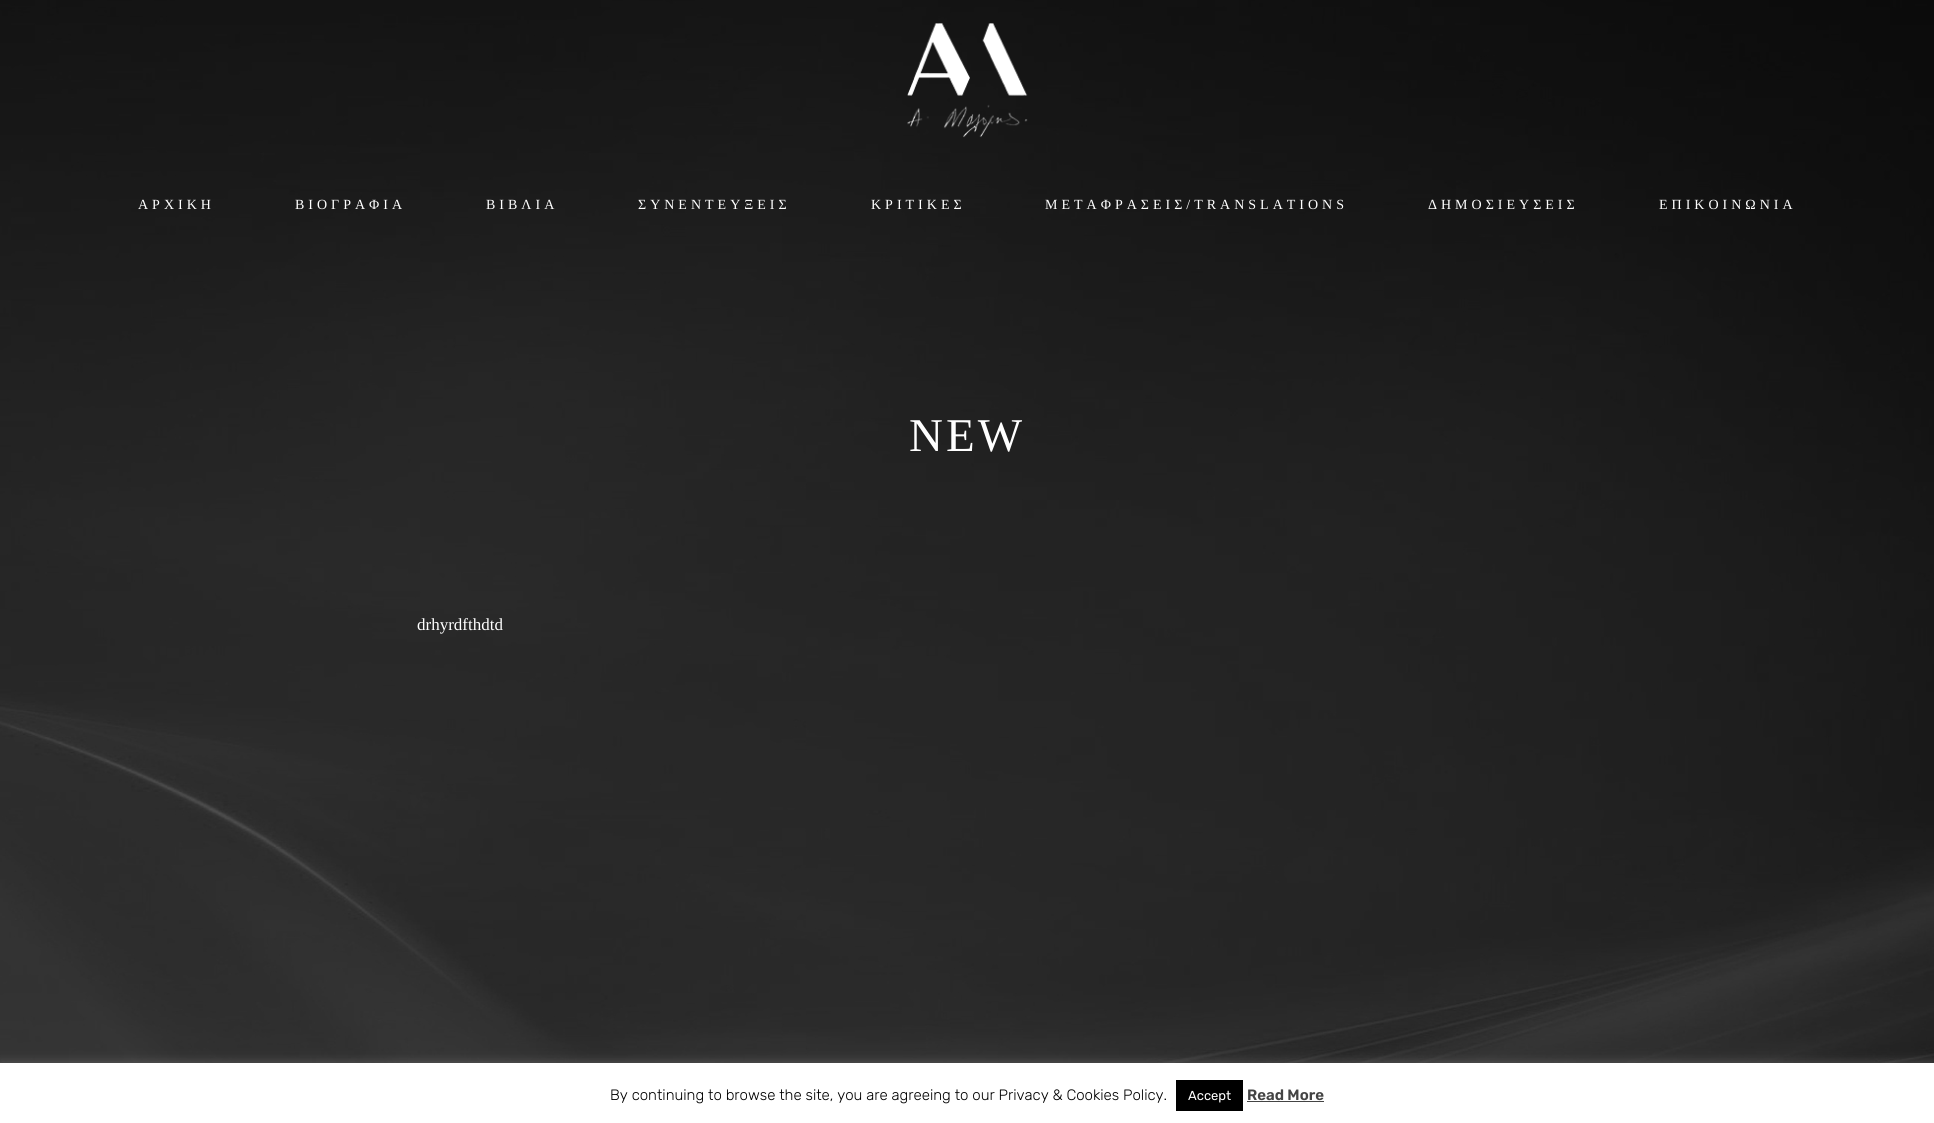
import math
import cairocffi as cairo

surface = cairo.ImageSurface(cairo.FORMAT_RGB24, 1934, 1123)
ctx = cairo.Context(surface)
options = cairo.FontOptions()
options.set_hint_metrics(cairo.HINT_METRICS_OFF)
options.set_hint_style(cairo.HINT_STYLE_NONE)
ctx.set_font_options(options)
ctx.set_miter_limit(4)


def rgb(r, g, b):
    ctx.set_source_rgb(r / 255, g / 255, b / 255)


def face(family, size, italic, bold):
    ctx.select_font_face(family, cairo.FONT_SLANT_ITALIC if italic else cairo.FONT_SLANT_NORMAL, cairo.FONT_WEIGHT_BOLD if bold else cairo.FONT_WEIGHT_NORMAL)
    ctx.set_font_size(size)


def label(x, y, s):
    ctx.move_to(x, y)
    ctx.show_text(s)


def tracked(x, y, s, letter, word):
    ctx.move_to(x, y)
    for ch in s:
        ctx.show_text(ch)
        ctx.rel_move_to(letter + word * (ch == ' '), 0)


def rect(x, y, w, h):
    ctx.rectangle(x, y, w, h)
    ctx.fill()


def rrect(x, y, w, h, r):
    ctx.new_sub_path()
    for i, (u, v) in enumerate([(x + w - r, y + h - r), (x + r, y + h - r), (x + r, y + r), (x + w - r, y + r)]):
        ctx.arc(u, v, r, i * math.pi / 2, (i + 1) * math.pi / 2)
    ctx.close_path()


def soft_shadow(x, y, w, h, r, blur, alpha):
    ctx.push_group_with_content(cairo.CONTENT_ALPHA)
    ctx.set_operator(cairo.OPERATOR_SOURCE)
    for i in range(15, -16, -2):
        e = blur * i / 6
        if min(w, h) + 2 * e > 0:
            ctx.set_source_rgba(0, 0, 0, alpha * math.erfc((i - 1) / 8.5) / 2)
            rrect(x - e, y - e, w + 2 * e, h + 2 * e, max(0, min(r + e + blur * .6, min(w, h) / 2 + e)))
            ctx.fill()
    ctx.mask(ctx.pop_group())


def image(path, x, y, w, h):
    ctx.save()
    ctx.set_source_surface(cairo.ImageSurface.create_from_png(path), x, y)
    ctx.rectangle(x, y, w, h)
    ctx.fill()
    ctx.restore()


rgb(255, 255, 255)
ctx.paint()
image('image0.png', 0, 0, 1934, 1063)
image('image1.png', 907, 23, 121, 115)
face('Liberation Serif', 14, 0, 0)
rgb(255, 255, 255)
tracked(138, 209, 'ΑΡΧΙΚΗ', 4, 0)
tracked(295, 209, 'ΒΙΟΓΡΑΦΙΑ', 4, 0)
tracked(486, 209, 'ΒΙΒΛΙΑ', 4, 0)
tracked(638, 209, 'ΣΥΝΕΝΤΕΥΞΕΙΣ', 4, 0)
tracked(871, 209, 'ΚΡΙΤΙΚΕΣ', 4, 0)
tracked(1045, 209, 'ΜΕΤΑΦΡΑΣΕΙΣ/TRANSLATIONS', 4, 0)
tracked(1428, 209, 'ΔΗΜΟΣΙΕΥΣΕΙΣ', 4, 0)
tracked(1659, 209, 'ΕΠΙΚΟΙΝΩΝΙΑ', 4, 0)
face('Liberation Serif', 47, 0, 0)
tracked(909, 451, 'NEW', 3, 0)
face('Liberation Serif', 17, 0, 0)
label(417, 630, 'drhyrdfthdtd')
rgb(172, 171, 171)
soft_shadow(0, 1062, 1934, 60, 0, 5, 0.3)
rgb(255, 255, 255)
rect(0, 1063, 1934, 60)
face('Rubik Light', 15, 0, 0)
rgb(0, 0, 0)
label(610, 1100, 'By continuing to browse the site, you are agreeing to our Privacy & Cookies Policy.')
rect(1176, 1080, 67, 31)
face('Rubik', 13, 0, 0)
rgb(255, 255, 255)
label(1188, 1100, 'Accept')
face('Rubik SemiBold', 15, 0, 0)
rgb(68, 68, 68)
label(1247, 1100, 'Read More')
rect(1247, 1101, 77, 1)
surface.write_to_png('render.png')
